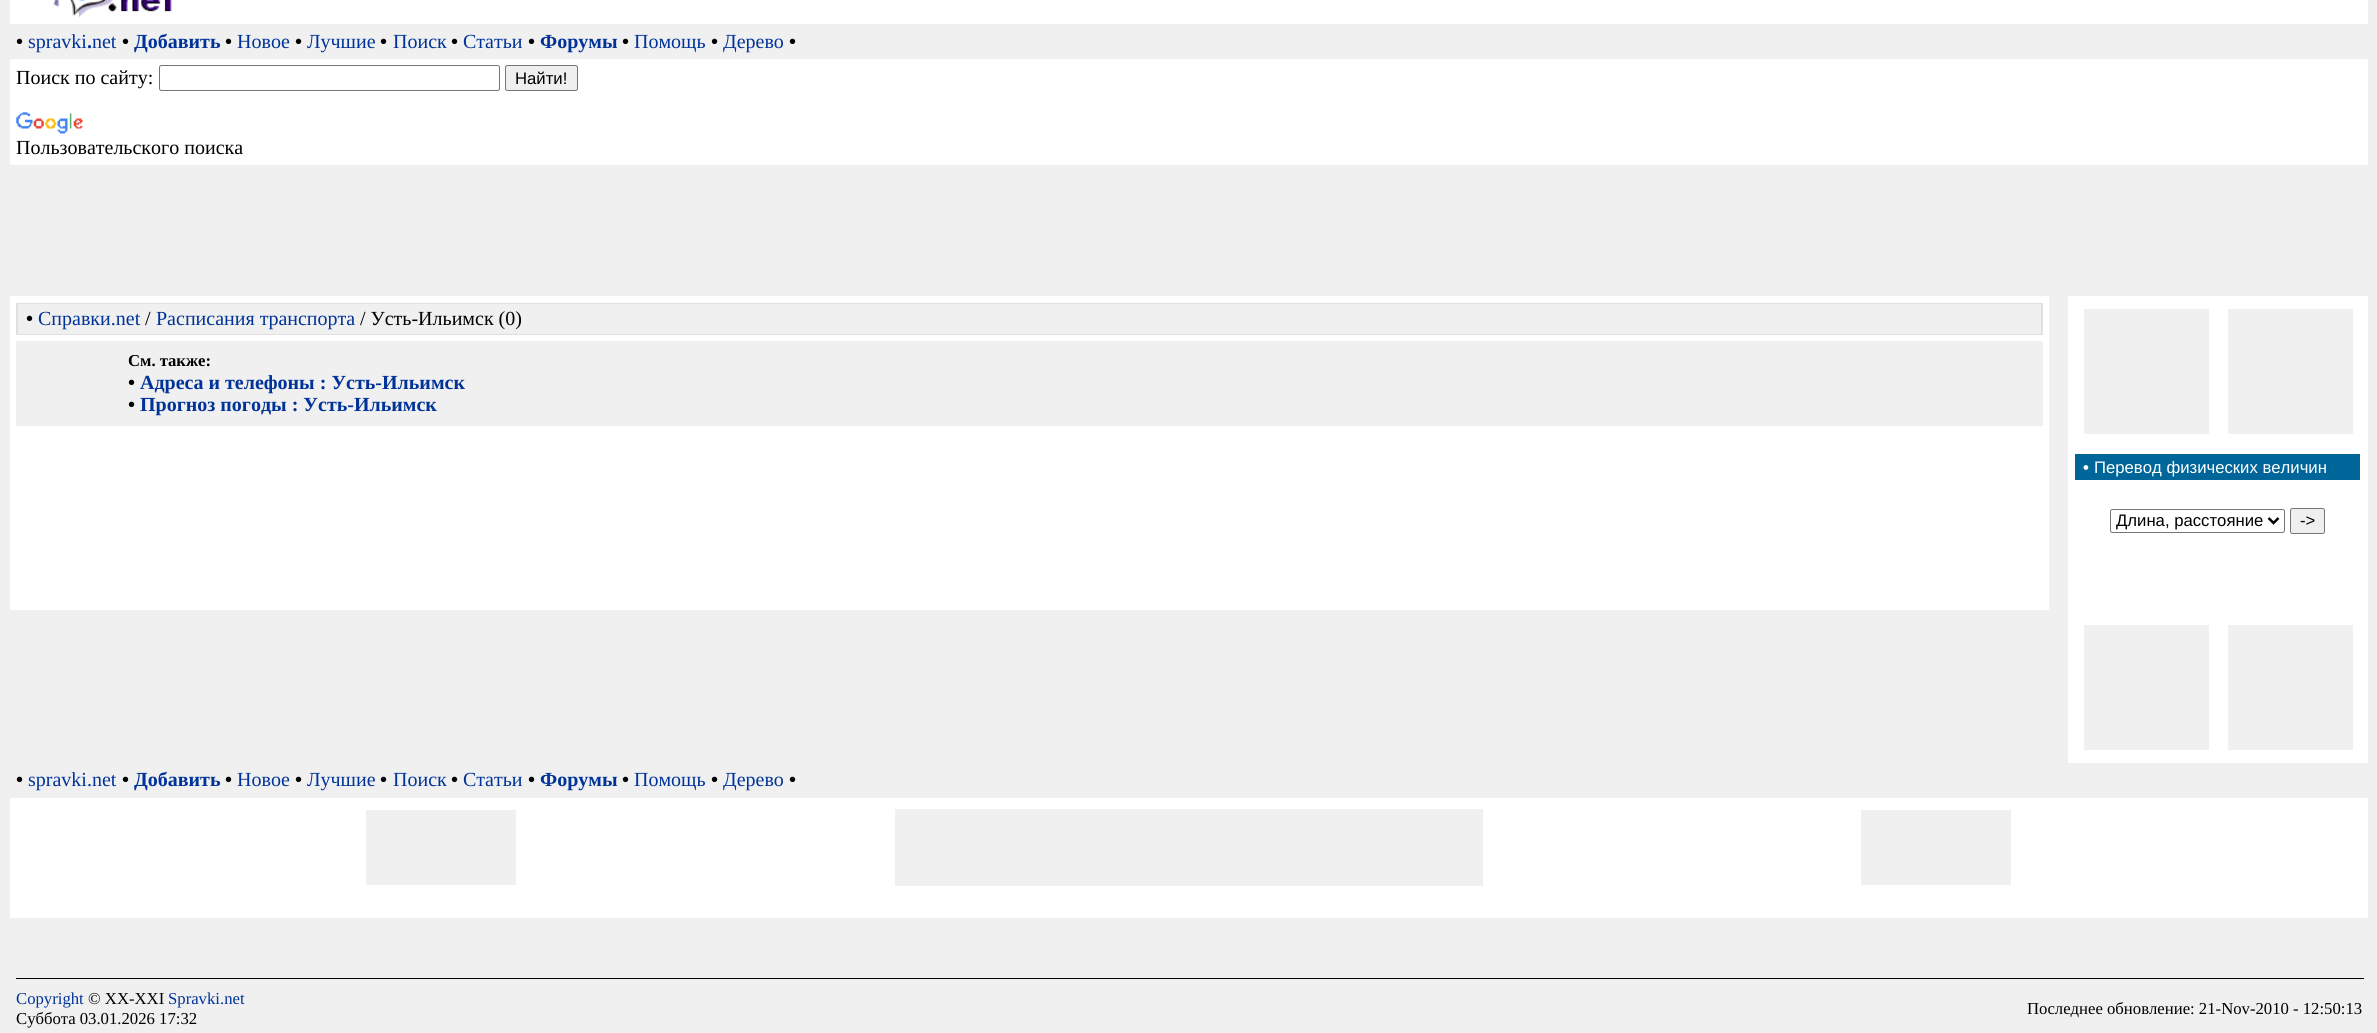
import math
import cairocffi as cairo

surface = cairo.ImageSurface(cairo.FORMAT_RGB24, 2377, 1033)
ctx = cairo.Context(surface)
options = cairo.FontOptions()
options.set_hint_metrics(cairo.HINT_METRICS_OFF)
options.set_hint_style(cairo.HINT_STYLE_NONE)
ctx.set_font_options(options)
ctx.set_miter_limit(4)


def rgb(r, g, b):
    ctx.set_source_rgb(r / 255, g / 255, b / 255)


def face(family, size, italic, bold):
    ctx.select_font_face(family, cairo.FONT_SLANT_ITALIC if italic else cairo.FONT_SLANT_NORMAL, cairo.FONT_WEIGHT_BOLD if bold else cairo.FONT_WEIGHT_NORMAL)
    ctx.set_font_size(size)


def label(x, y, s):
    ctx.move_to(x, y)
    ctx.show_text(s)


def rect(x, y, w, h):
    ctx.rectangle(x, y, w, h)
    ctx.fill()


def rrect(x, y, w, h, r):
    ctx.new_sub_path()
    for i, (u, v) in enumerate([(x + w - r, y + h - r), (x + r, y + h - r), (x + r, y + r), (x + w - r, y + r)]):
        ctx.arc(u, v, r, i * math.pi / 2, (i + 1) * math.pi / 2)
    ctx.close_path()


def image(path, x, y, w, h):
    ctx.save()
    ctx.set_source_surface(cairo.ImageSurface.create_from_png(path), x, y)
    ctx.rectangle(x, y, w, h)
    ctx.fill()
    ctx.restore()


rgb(240, 240, 240)
ctx.paint()
rgb(255, 255, 255)
rect(10, 0, 2358, 24)
image('image0.png', 53, 0, 119, 18)
rect(10, 59, 2358, 106)
face('Liberation Serif', 20, 0, 1)
rgb(0, 0, 0)
label(16, 48, '•')
face('Liberation Serif', 20, 0, 0)
rgb(0, 51, 153)
label(28, 48, 'spravki net')
face('Liberation Serif', 20, 0, 1)
rgb(0, 0, 0)
label(122, 48, '•')
rgb(0, 51, 153)
label(134, 48, 'Добавить')
rgb(0, 0, 0)
label(225, 48, '•')
face('Liberation Serif', 20, 0, 0)
rgb(0, 51, 153)
label(237, 48, 'Новое')
face('Liberation Serif', 20, 0, 1)
rgb(0, 0, 0)
label(295, 48, '•')
face('Liberation Serif', 20, 0, 0)
rgb(0, 51, 153)
label(307, 48, 'Лучшие')
face('Liberation Serif', 20, 0, 1)
rgb(0, 0, 0)
label(380, 48, '•')
face('Liberation Serif', 20, 0, 0)
rgb(0, 51, 153)
label(393, 48, 'Поиск')
face('Liberation Serif', 20, 0, 1)
rgb(0, 0, 0)
label(451, 48, '•')
face('Liberation Serif', 20, 0, 0)
rgb(0, 51, 153)
label(463, 48, 'Статьи')
face('Liberation Serif', 20, 0, 1)
rgb(0, 0, 0)
label(528, 48, '•')
rgb(0, 51, 153)
label(540, 48, 'Форумы')
rgb(0, 0, 0)
label(622, 48, '•')
face('Liberation Serif', 20, 0, 0)
rgb(0, 51, 153)
label(634, 48, 'Помощь')
face('Liberation Serif', 20, 0, 1)
rgb(0, 0, 0)
label(711, 48, '•')
face('Liberation Serif', 20, 0, 0)
rgb(0, 51, 153)
label(723, 48, 'Дерево')
face('Liberation Serif', 20, 0, 1)
rgb(0, 0, 0)
label(789, 48, '•')
rgb(0, 51, 153)
label(87, 48, '.')
face('Liberation Serif', 20, 0, 0)
rgb(0, 0, 0)
label(16, 84, 'Поиск по сайту:')
rrect(159.5, 65.5, 340, 25, 2)
rgb(118, 118, 118)
ctx.set_line_width(1)
ctx.stroke()
rgb(239, 239, 239)
rrect(505.5, 65.5, 72, 25, 2)
ctx.fill_preserve()
rgb(118, 118, 118)
ctx.stroke()
face('Liberation Sans', 16.7, 0, 0)
rgb(0, 0, 0)
label(515, 84, 'Найти!')
image('image1.png', 16, 112, 67, 22)
face('Liberation Serif', 20, 0, 0)
label(16, 154, 'Пользовательского поиска')
rgb(255, 255, 255)
rect(10, 296, 2039, 314)
rgb(224, 224, 224)
rect(16, 303, 2027, 32)
rgb(240, 240, 240)
rect(18, 304, 2023, 30)
face('Liberation Serif', 20, 0, 1)
rgb(0, 0, 0)
label(26, 325, '•')
face('Liberation Serif', 20, 0, 0)
rgb(0, 51, 153)
label(38, 325, 'Справки.net')
rgb(0, 0, 0)
label(145, 325, '/')
rgb(0, 51, 153)
label(156, 325, 'Расписания транспорта')
rgb(0, 0, 0)
label(360, 325, '/ Усть-Ильимск (0)')
rgb(240, 240, 240)
rect(16, 341, 2027, 85)
face('Liberation Serif', 16.7, 0, 1)
rgb(0, 0, 0)
label(128, 366, 'См. также:')
face('Liberation Serif', 20, 0, 1)
label(128, 389, '•')
rgb(0, 51, 153)
label(140, 389, 'Адреса и телефоны : Усть-Ильимск')
rgb(0, 0, 0)
label(128, 411, '•')
rgb(0, 51, 153)
label(140, 411, 'Прогноз погоды : Усть-Ильимск')
rgb(255, 255, 255)
rect(2068, 296, 300, 467)
rgb(240, 240, 240)
rect(2084, 309, 125, 125)
rect(2228, 309, 125, 125)
rgb(0, 102, 153)
rect(2075, 454, 285, 26)
face('Liberation Sans', 16.7, 0, 1)
rgb(255, 255, 255)
label(2083, 473, '•')
face('Liberation Sans', 16.7, 0, 0)
label(2094, 473, 'Перевод физических величин')
rrect(2110.5, 509.5, 174, 23, 2)
rgb(118, 118, 118)
ctx.stroke()
ctx.new_path()
ctx.move_to(2268.5, 518)
ctx.line_to(2273.5, 523)
ctx.line_to(2278.5, 518)
rgb(0, 0, 0)
ctx.set_line_width(2.5)
ctx.stroke()
label(2116, 526, 'Длина, расстояние')
rgb(239, 239, 239)
rrect(2290.5, 508.5, 34, 25, 2)
ctx.fill_preserve()
rgb(118, 118, 118)
ctx.set_line_width(1)
ctx.stroke()
rgb(0, 0, 0)
label(2300, 526, '->')
rgb(240, 240, 240)
rect(2084, 625, 125, 125)
rect(2228, 625, 125, 125)
face('Liberation Serif', 20, 0, 1)
rgb(0, 0, 0)
label(16, 786, '•')
face('Liberation Serif', 20, 0, 0)
rgb(0, 51, 153)
label(28, 786, 'spravki.net')
face('Liberation Serif', 20, 0, 1)
rgb(0, 0, 0)
label(122, 786, '•')
rgb(0, 51, 153)
label(134, 786, 'Добавить')
rgb(0, 0, 0)
label(225, 786, '•')
face('Liberation Serif', 20, 0, 0)
rgb(0, 51, 153)
label(237, 786, 'Новое')
face('Liberation Serif', 20, 0, 1)
rgb(0, 0, 0)
label(295, 786, '•')
face('Liberation Serif', 20, 0, 0)
rgb(0, 51, 153)
label(307, 786, 'Лучшие')
face('Liberation Serif', 20, 0, 1)
rgb(0, 0, 0)
label(380, 786, '•')
face('Liberation Serif', 20, 0, 0)
rgb(0, 51, 153)
label(393, 786, 'Поиск')
face('Liberation Serif', 20, 0, 1)
rgb(0, 0, 0)
label(451, 786, '•')
face('Liberation Serif', 20, 0, 0)
rgb(0, 51, 153)
label(463, 786, 'Статьи')
face('Liberation Serif', 20, 0, 1)
rgb(0, 0, 0)
label(528, 786, '•')
rgb(0, 51, 153)
label(540, 786, 'Форумы')
rgb(0, 0, 0)
label(622, 786, '•')
face('Liberation Serif', 20, 0, 0)
rgb(0, 51, 153)
label(634, 786, 'Помощь')
face('Liberation Serif', 20, 0, 1)
rgb(0, 0, 0)
label(711, 786, '•')
face('Liberation Serif', 20, 0, 0)
rgb(0, 51, 153)
label(723, 786, 'Дерево')
face('Liberation Serif', 20, 0, 1)
rgb(0, 0, 0)
label(789, 786, '•')
rgb(255, 255, 255)
rect(10, 798, 2358, 120)
rgb(240, 240, 240)
rect(366, 810, 150, 75)
rect(895, 809, 588, 77)
rect(1861, 810, 150, 75)
rgb(0, 0, 0)
rect(16, 978, 2348, 1)
face('Liberation Serif', 16.7, 0, 0)
rgb(0, 51, 153)
label(16, 1004, 'Copyright')
rgb(0, 0, 0)
label(88, 1004, '© XX-XXI')
rgb(0, 51, 153)
label(168, 1004, 'Spravki.net')
rgb(0, 0, 0)
label(16, 1024, 'Суббота 03.01.2026 17:32')
label(2027, 1014, 'Последнее обновление: 21-Nov-2010 - 12:50:13')
surface.write_to_png('render.png')
